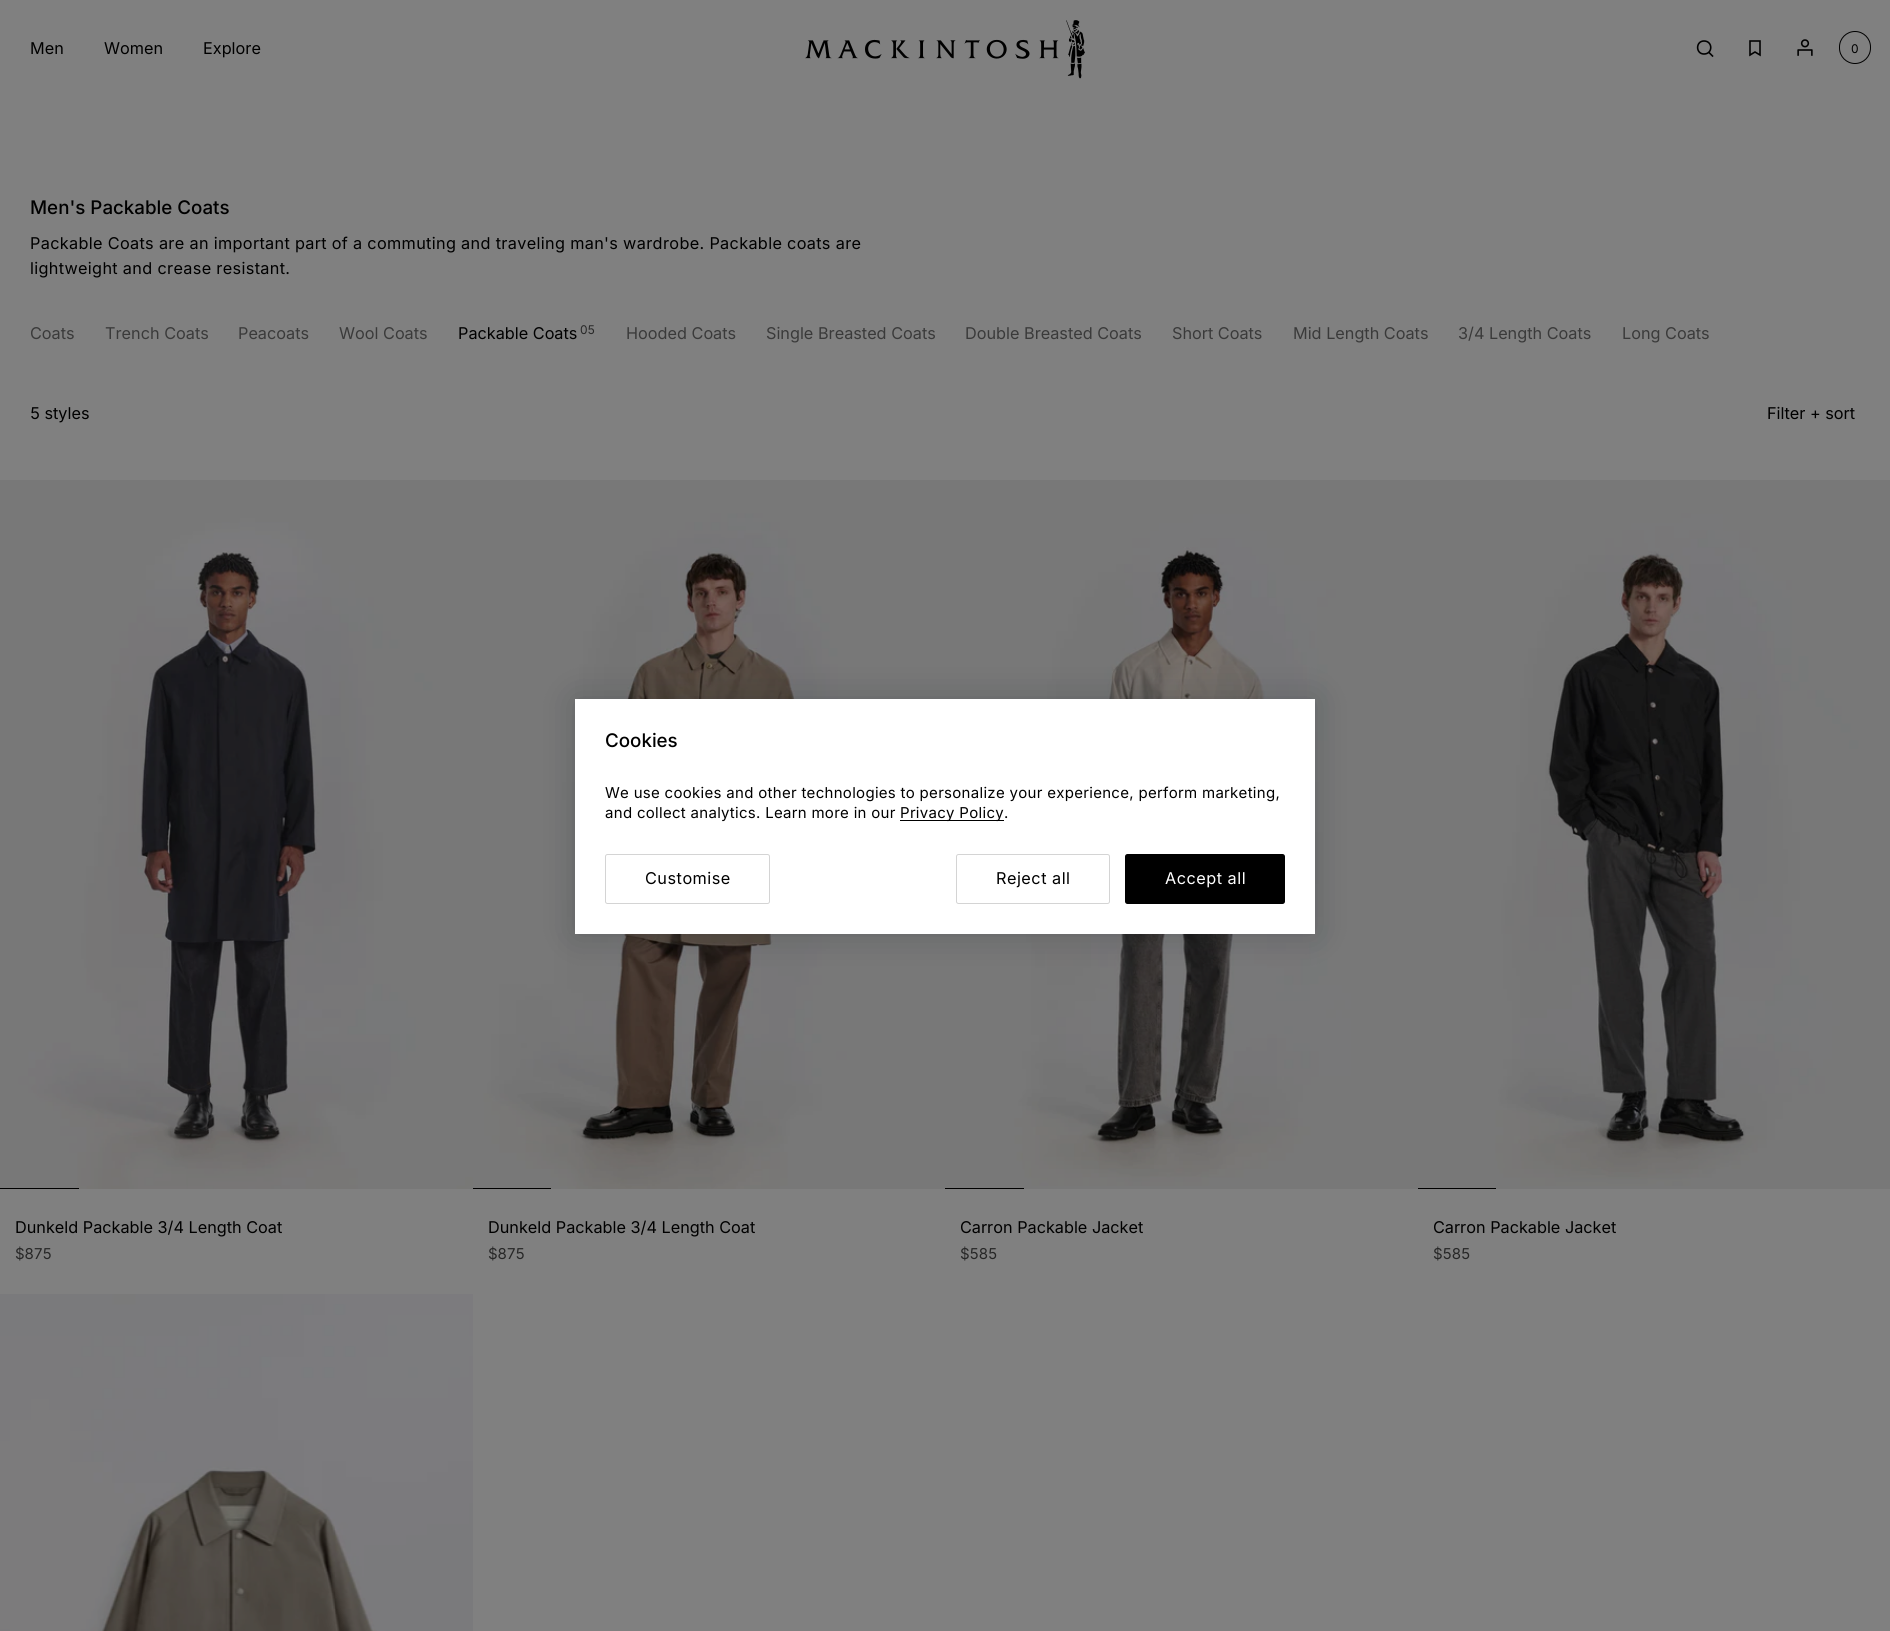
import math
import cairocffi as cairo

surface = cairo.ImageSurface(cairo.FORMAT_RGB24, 1890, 1631)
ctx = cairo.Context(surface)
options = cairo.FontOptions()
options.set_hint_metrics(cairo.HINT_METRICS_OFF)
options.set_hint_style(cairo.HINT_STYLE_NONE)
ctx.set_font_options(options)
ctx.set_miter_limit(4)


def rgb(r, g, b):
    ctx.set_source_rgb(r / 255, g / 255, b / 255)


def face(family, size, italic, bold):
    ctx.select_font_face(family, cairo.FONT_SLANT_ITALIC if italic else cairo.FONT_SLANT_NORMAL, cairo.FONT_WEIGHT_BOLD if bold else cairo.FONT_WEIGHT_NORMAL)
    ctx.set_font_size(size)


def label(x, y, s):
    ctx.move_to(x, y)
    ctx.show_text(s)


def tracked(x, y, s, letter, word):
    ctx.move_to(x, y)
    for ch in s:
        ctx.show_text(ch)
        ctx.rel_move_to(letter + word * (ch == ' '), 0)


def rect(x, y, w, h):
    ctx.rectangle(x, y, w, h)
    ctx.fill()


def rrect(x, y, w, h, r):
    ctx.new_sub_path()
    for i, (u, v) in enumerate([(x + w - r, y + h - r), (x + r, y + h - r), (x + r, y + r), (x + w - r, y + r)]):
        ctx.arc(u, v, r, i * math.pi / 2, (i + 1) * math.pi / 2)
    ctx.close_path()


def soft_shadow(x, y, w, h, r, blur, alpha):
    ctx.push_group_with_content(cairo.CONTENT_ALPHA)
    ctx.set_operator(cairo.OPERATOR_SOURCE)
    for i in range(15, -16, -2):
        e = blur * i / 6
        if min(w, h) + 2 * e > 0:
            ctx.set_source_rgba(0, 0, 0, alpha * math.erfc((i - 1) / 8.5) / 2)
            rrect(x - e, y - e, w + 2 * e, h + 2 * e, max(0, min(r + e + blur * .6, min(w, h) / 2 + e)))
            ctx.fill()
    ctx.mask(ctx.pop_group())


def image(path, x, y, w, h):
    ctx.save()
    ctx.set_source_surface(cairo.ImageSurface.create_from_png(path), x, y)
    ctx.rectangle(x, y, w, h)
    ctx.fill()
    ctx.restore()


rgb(128, 128, 128)
ctx.paint()
face('Inter', 16.25, 0, 0)
rgb(0, 0, 0)
label(30, 54, 'Men')
label(104, 54, 'Women')
label(203, 54, 'Explore')
image('image0.png', 805, 20, 280, 59)
ctx.new_path()
ctx.move_to(1704, 54)
ctx.curve_to(1713, 54, 1713, 41, 1704, 41)
ctx.curve_to(1695.5, 41, 1695.5, 54, 1704, 54)
ctx.close_path()
ctx.move_to(1712.5, 56)
ctx.line_to(1709, 52.5)
ctx.set_line_width(1.6)
ctx.set_line_cap(cairo.LINE_CAP_SQUARE)
ctx.set_line_join(cairo.LINE_JOIN_ROUND)
ctx.stroke()
ctx.new_path()
ctx.move_to(1760, 41)
ctx.line_to(1750, 41)
ctx.line_to(1750, 55)
ctx.line_to(1755, 52)
ctx.line_to(1760, 55)
ctx.close_path()
ctx.set_line_cap(cairo.LINE_CAP_BUTT)
ctx.set_line_join(cairo.LINE_JOIN_MITER)
ctx.stroke()
image('image1.png', 1797, 39, 16, 17)
rrect(1839.5, 31.5, 31, 32, 15.5)
ctx.set_line_width(1)
ctx.stroke()
face('Inter', 12, 0, 0)
label(1851, 53, '0')
face('Inter Medium', 18.75, 0, 0)
label(30, 214, 'Men\'s Packable Coats')
face('Inter', 16.25, 0, 0)
tracked(30, 249, 'Packable Coats are an important part of a commuting and traveling man\'s wardrobe. Packable coats are', 0.33, 0)
tracked(30, 274, 'lightweight and crease resistant.', 0.33, 0)
rgb(58, 58, 58)
label(30, 339, 'Coats')
label(105, 339, 'Trench Coats')
label(238, 339, 'Peacoats')
label(339, 339, 'Wool Coats')
rgb(0, 0, 0)
label(458, 339, 'Packable Coats')
face('Inter', 12, 0, 0)
rgb(39, 39, 39)
label(580, 334, '05')
face('Inter', 16.25, 0, 0)
rgb(58, 58, 58)
label(626, 339, 'Hooded Coats')
label(766, 339, 'Single Breasted Coats')
label(965, 339, 'Double Breasted Coats')
label(1172, 339, 'Short Coats')
label(1293, 339, 'Mid Length Coats')
label(1458, 339, '3/4 Length Coats')
label(1622, 339, 'Long Coats')
rgb(0, 0, 0)
label(30, 419, '5 styles')
label(1767, 419, 'Filter + sort')
image('image2.png', 0, 480, 473, 709)
rect(0, 1188, 79, 1)
label(15, 1233, 'Dunkeld Packable 3/4 Length Coat')
face('Inter', 15, 0, 0)
rgb(39, 39, 39)
label(15, 1259, '$875')
image('image3.png', 473, 480, 472, 709)
rgb(0, 0, 0)
rect(473, 1188, 78, 1)
face('Inter', 16.25, 0, 0)
label(488, 1233, 'Dunkeld Packable 3/4 Length Coat')
face('Inter', 15, 0, 0)
rgb(39, 39, 39)
label(488, 1259, '$875')
image('image4.png', 945, 480, 473, 709)
rgb(0, 0, 0)
rect(945, 1188, 79, 1)
face('Inter', 16.25, 0, 0)
label(960, 1233, 'Carron Packable Jacket')
face('Inter', 15, 0, 0)
rgb(39, 39, 39)
label(960, 1259, '$585')
image('image5.png', 1418, 480, 472, 709)
rgb(0, 0, 0)
rect(1418, 1188, 78, 1)
face('Inter', 16.25, 0, 0)
label(1433, 1233, 'Carron Packable Jacket')
face('Inter', 15, 0, 0)
rgb(39, 39, 39)
label(1433, 1259, '$585')
image('image6.png', 0, 1294, 473, 337)
rgb(1, 11, 19)
soft_shadow(575, 699, 740, 235, 0, 17.5, 0.2)
rgb(255, 255, 255)
rect(575, 699, 740, 235)
face('Inter Medium', 18.75, 0, 0)
rgb(0, 0, 0)
label(605, 747, 'Cookies')
face('Inter', 15, 0, 0)
tracked(605, 798, 'We use cookies and other technologies to personalize your experience, perform marketing,', 0.3, 0)
tracked(605, 818, 'and collect analytics. Learn more in our', 0.3, 0)
rect(900, 820, 104, 1)
tracked(900, 818, 'Privacy Policy.', 0.3, 0)
rrect(605.5, 854.5, 164, 49, 2)
rgb(212, 212, 212)
ctx.stroke()
face('Inter', 16.25, 0, 0)
rgb(0, 0, 0)
tracked(645, 884, 'Customise', 0.5, 0)
rrect(956.5, 854.5, 153, 49, 2)
rgb(212, 212, 212)
ctx.stroke()
rgb(0, 0, 0)
tracked(996, 884, 'Reject all', 0.5, 0)
rrect(1125, 854, 160, 50, 2.5)
ctx.fill()
rgb(255, 255, 255)
tracked(1165, 884, 'Accept all', 0.5, 0)
surface.write_to_png('render.png')
